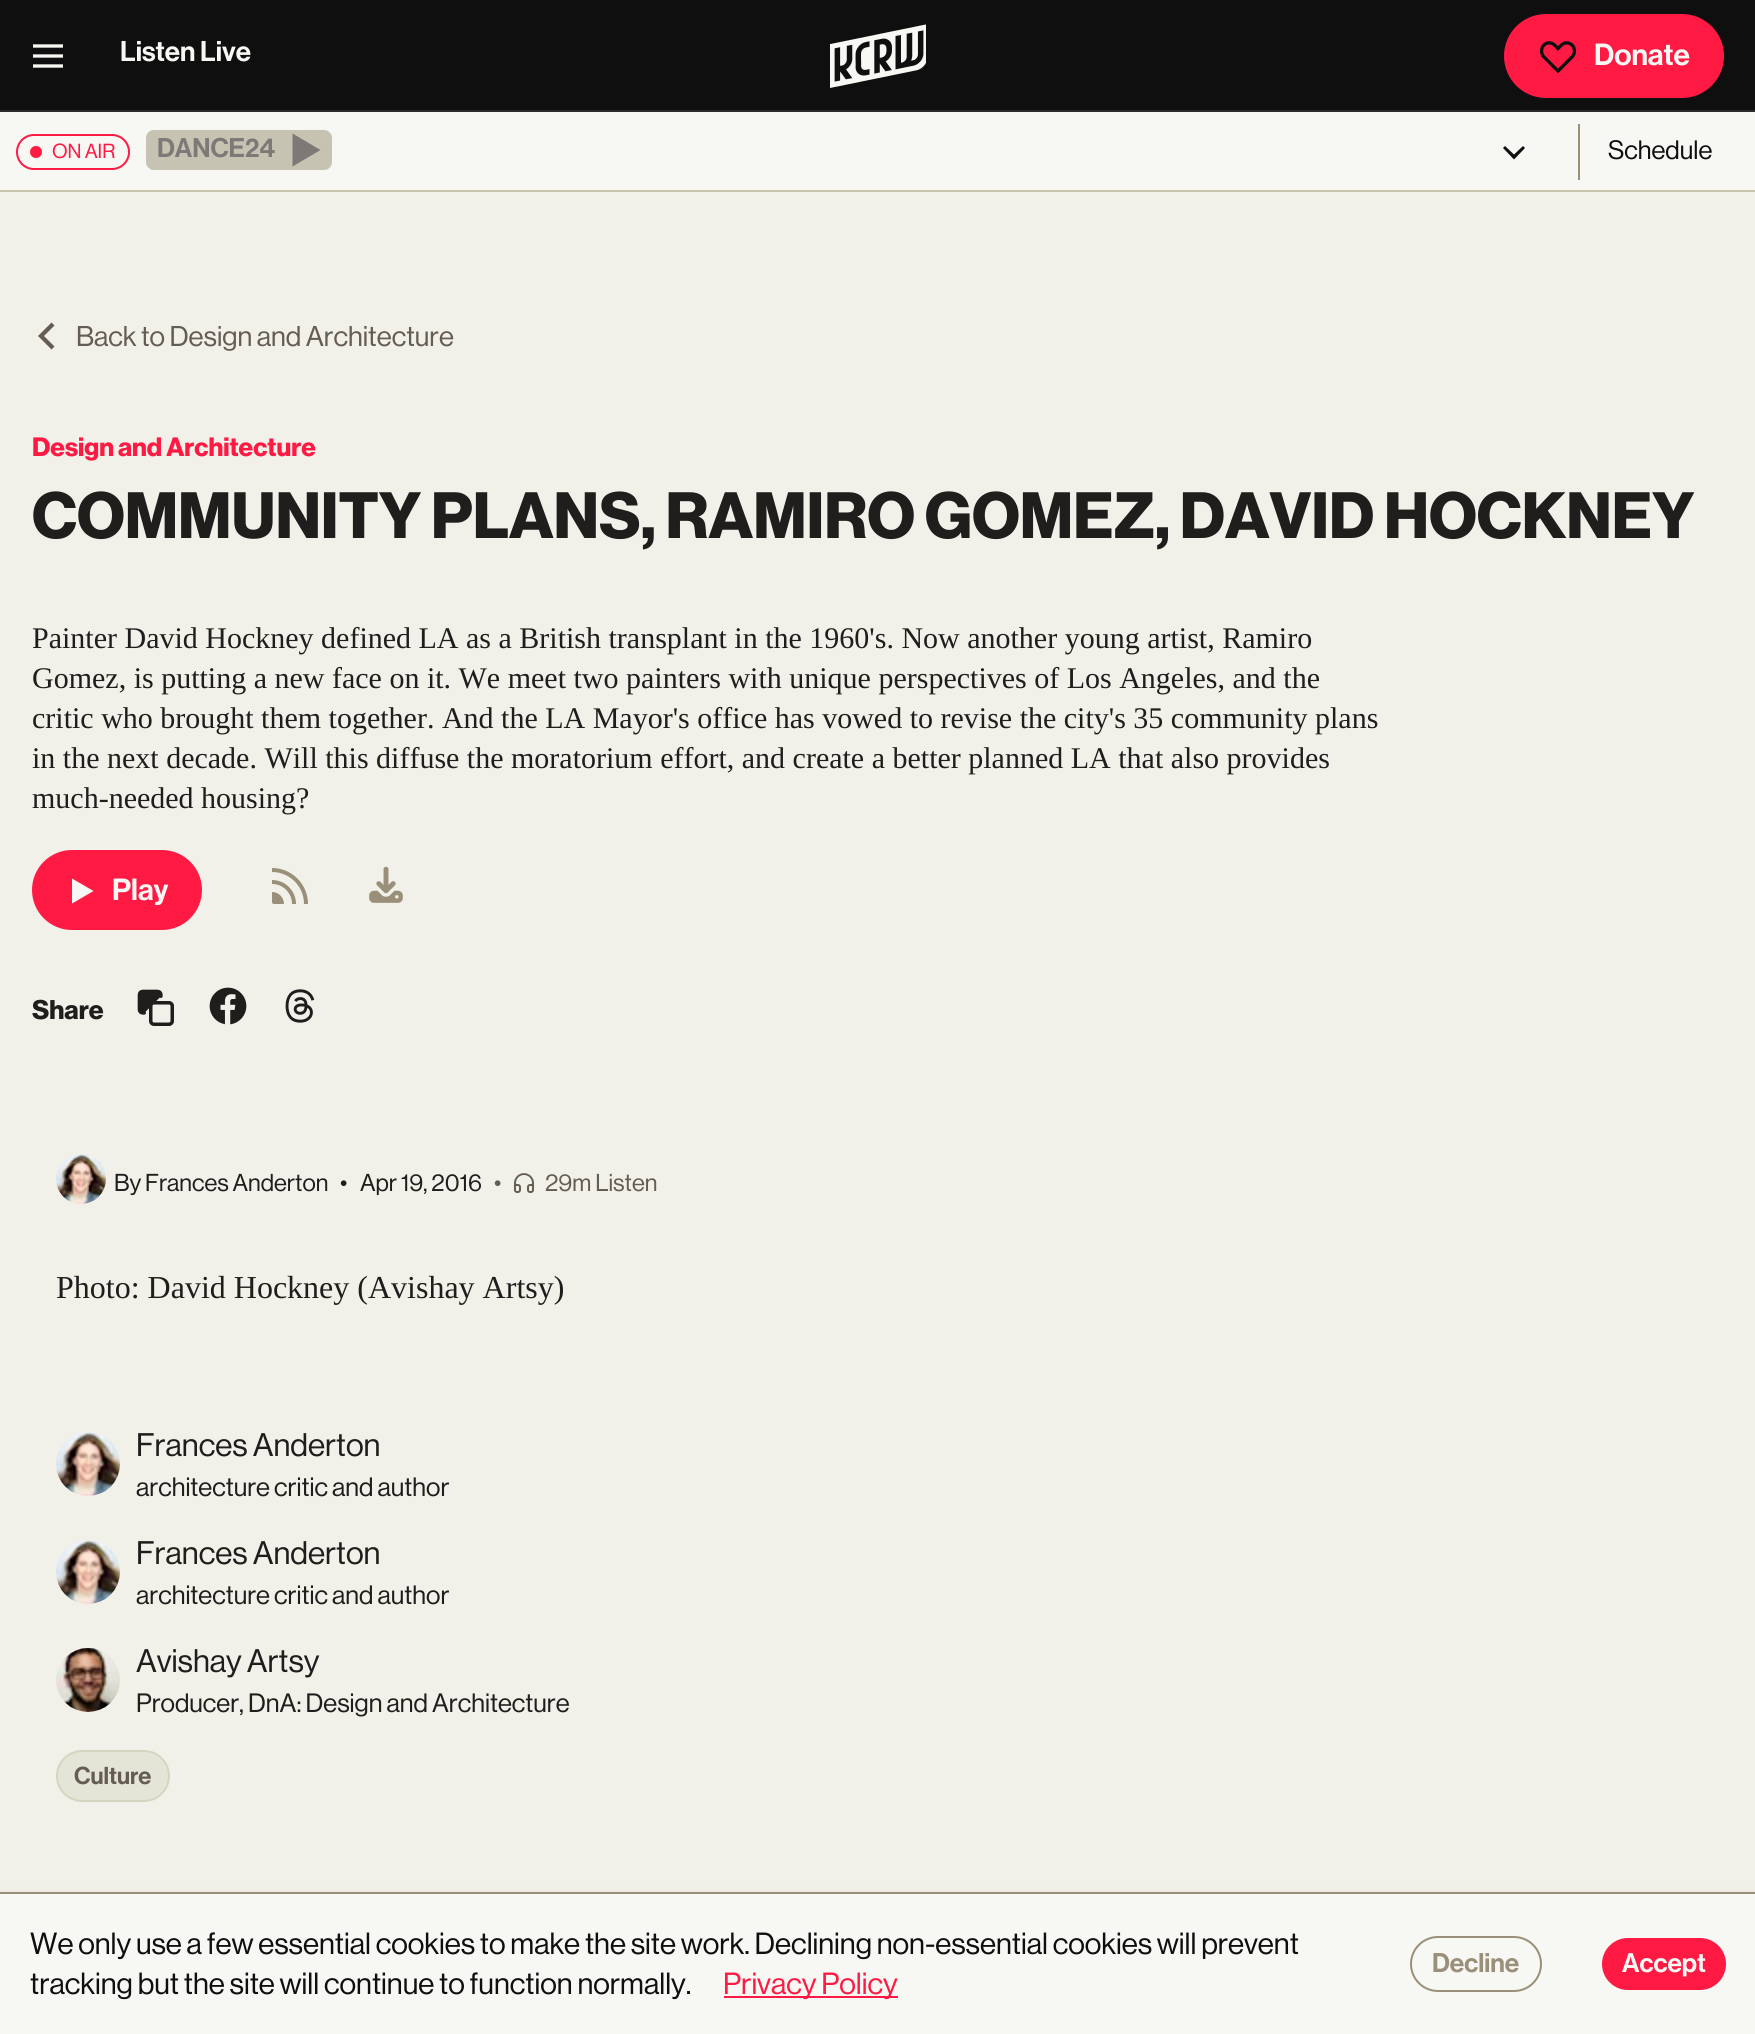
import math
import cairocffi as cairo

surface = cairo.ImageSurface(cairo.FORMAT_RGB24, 1755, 2034)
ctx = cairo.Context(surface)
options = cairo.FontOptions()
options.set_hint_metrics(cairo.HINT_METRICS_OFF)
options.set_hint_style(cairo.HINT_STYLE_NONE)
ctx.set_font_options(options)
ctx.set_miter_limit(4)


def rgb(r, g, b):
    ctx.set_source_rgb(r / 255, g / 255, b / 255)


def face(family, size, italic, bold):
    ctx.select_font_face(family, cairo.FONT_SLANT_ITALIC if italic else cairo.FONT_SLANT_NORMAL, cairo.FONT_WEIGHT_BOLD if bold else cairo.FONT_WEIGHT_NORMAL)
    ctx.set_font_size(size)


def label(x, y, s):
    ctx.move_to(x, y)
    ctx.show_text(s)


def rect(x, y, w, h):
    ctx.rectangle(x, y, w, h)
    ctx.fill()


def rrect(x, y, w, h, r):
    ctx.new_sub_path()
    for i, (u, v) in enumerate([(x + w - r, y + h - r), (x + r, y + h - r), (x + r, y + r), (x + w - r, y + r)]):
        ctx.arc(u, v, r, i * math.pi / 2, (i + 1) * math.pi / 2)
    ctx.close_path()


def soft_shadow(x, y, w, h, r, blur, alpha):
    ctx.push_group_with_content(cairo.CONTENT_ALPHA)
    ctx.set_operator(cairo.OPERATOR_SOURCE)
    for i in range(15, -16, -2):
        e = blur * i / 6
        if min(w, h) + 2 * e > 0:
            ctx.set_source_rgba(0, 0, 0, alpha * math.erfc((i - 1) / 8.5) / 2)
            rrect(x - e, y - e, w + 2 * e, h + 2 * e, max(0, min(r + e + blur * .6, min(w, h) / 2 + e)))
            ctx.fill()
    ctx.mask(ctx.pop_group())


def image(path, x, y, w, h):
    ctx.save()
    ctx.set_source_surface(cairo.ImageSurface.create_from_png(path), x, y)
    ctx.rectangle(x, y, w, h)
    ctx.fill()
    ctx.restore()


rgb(241, 241, 234)
ctx.paint()
rgb(15, 15, 15)
rect(0, 0, 1755, 110)
rgb(43, 43, 42)
rect(0, 110, 1755, 2)
image('image0.png', 33, 44, 30, 24)
face('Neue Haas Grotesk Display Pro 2 Medium', 28, 0, 0)
rgb(247, 247, 243)
label(120, 61, 'Listen Live')
image('image1.png', 830, 24, 96, 64)
rgb(255, 26, 68)
rrect(1505, 15, 218, 82, 41)
ctx.fill_preserve()
ctx.stroke()
image('image2.png', 1539, 41, 38, 33)
face('Neue Haas Grotesk Display Pro 2 Medium', 30, 0, 0)
rgb(247, 247, 243)
label(1594, 65, 'Donate')
rect(0, 112, 1755, 78)
rgb(199, 196, 174)
rect(0, 190, 1755, 2)
rrect(17, 135, 112, 34, 17)
rgb(255, 26, 68)
ctx.stroke()
ctx.arc(36, 152, 6, 0, 2 * math.pi)
ctx.fill()
face('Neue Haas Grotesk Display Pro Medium', 20, 0, 0)
label(52, 158, 'ON AIR')
rgb(239, 239, 239)
rrect(146, 130, 186, 40, 8)
ctx.fill()
ctx.set_source_rgba(0.714, 0.694, 0.604, 0.7)
rrect(146, 130, 186, 40, 8)
ctx.fill()
face('Neue Haas Grotesk Display Pro 2 Medium', 26.5, 0, 0)
rgb(126, 121, 118)
label(157, 157, 'DANCE24')
ctx.new_path()
ctx.move_to(292.5, 133.5)
ctx.line_to(292.5, 166.5)
ctx.line_to(320.5, 150)
ctx.close_path()
ctx.fill()
rgb(16, 15, 15)
ctx.set_fill_rule(cairo.FILL_RULE_EVEN_ODD)
ctx.new_path()
ctx.move_to(1503, 148)
ctx.line_to(1505, 146)
ctx.line_to(1514, 154.5)
ctx.line_to(1523, 146)
ctx.line_to(1525, 148)
ctx.line_to(1514, 159.5)
ctx.close_path()
ctx.fill()
rgb(154, 144, 121)
rect(1578, 124, 2, 56)
face('Neue Haas Grotesk Display Pro Medium', 26, 0, 0)
rgb(16, 15, 15)
label(1608, 159, 'Schedule')
rgb(101, 92, 83)
ctx.new_path()
ctx.move_to(51.5, 322.5)
ctx.line_to(54.5, 325.5)
ctx.line_to(44, 336)
ctx.line_to(54.5, 346.5)
ctx.line_to(51.5, 349.5)
ctx.line_to(38, 336)
ctx.close_path()
ctx.fill()
face('Neue Haas Grotesk Display Pro Medium', 28, 0, 0)
label(76, 346, 'Back to Design and Architecture')
face('Neue Haas Grotesk Display Pro', 26, 0, 1)
rgb(255, 26, 68)
label(32, 456, 'Design and Architecture')
face('Neue Haas Grotesk Display Pro', 64, 0, 1)
rgb(32, 30, 29)
label(32, 538, 'COMMUNITY PLANS, RAMIRO GOMEZ, DAVID HOCKNEY')
face('Liberation Serif', 30, 0, 0)
label(32, 648, 'Painter David Hockney defined LA as a British transplant in the 1960\'s. Now another young artist, Ramiro')
label(32, 688, 'Gomez, is putting a new face on it. We meet two painters with unique perspectives of Los Angeles, and the')
label(32, 728, 'critic who brought them together. And the LA Mayor\'s office has vowed to revise the city\'s 35 community plans')
label(32, 768, 'in the next decade. Will this diffuse the moratorium effort, and create a better planned LA that also provides')
label(32, 808, 'much-needed housing?')
rgb(255, 26, 68)
rrect(33, 851, 168, 78, 39)
ctx.fill_preserve()
ctx.stroke()
rgb(247, 247, 243)
ctx.set_fill_rule(cairo.FILL_RULE_WINDING)
ctx.new_path()
ctx.move_to(72, 878.5)
ctx.line_to(72, 903.5)
ctx.line_to(93.5, 891)
ctx.close_path()
ctx.fill()
face('Neue Haas Grotesk Display Pro 2 Medium', 30, 0, 0)
label(112, 900, 'Play')
image('image3.png', 272, 868, 36, 36)
image('image4.png', 369, 866, 34, 37)
face('Neue Haas Grotesk Display Pro', 26.5, 0, 1)
rgb(32, 30, 29)
label(32, 1019, 'Share')
image('image5.png', 137, 989, 37, 37)
image('image6.png', 209, 987, 38, 38)
image('image7.png', 285, 989, 30, 34)
image('image8.png', 56, 1154, 50, 50)
face('Neue Haas Grotesk Display Pro Medium', 24, 0, 0)
label(114, 1191, 'By Frances Anderton')
label(340, 1191, '•')
label(360, 1191, 'Apr 19, 2016')
rgb(101, 92, 83)
label(494, 1191, '•')
image('image9.png', 514, 1173, 20, 20)
label(545, 1191, '29m Listen')
face('Liberation Serif', 32, 0, 0)
rgb(32, 30, 29)
label(56, 1298, 'Photo: David Hockney (Avishay Artsy)')
image('image10.png', 56, 1432, 64, 64)
face('Neue Haas Grotesk Display Pro Medium', 32, 0, 0)
label(136, 1456, 'Frances Anderton')
face('Neue Haas Grotesk Display Pro Medium', 26, 0, 0)
label(136, 1496, 'architecture critic and author')
image('image10.png', 56, 1540, 64, 64)
face('Neue Haas Grotesk Display Pro Medium', 32, 0, 0)
label(136, 1564, 'Frances Anderton')
face('Neue Haas Grotesk Display Pro Medium', 26, 0, 0)
label(136, 1604, 'architecture critic and author')
image('image11.png', 56, 1648, 64, 64)
face('Neue Haas Grotesk Display Pro Medium', 32, 0, 0)
label(136, 1672, 'Avishay Artsy')
face('Neue Haas Grotesk Display Pro Medium', 26, 0, 0)
label(136, 1712, 'Producer, DnA: Design and Architecture')
rgb(228, 228, 215)
rrect(57, 1751, 112, 50, 25)
ctx.fill_preserve()
rgb(214, 213, 194)
ctx.stroke()
face('Neue Haas Grotesk Display Pro 2 Medium', 24, 0, 0)
rgb(101, 92, 83)
label(74, 1784, 'Culture')
rgb(103, 5, 17)
soft_shadow(0, 1896, 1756, 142, 0, 4, 0.25)
rgb(247, 247, 243)
rect(0, 1894, 1755, 140)
rgb(154, 144, 121)
rect(0, 1892, 1755, 2)
face('Neue Haas Grotesk Display Pro Medium', 30, 0, 0)
rgb(16, 15, 15)
label(30, 1954, 'We only use a few essential cookies to make the site work. Declining non-essential cookies will prevent')
label(30, 1994, 'tracking but the site will continue to function normally.')
rgb(255, 26, 68)
rect(724, 1996, 174, 2)
label(723, 1994, 'Privacy Policy')
rrect(1411, 1937, 130, 54, 27)
rgb(154, 144, 121)
ctx.stroke()
face('Neue Haas Grotesk Display Pro 2 Medium', 26.5, 0, 0)
label(1432, 1972, 'Decline')
rgb(255, 26, 68)
rrect(1602, 1938, 124, 52, 26)
ctx.fill()
rgb(247, 247, 243)
label(1622, 1972, 'Accept')
surface.write_to_png('render.png')
